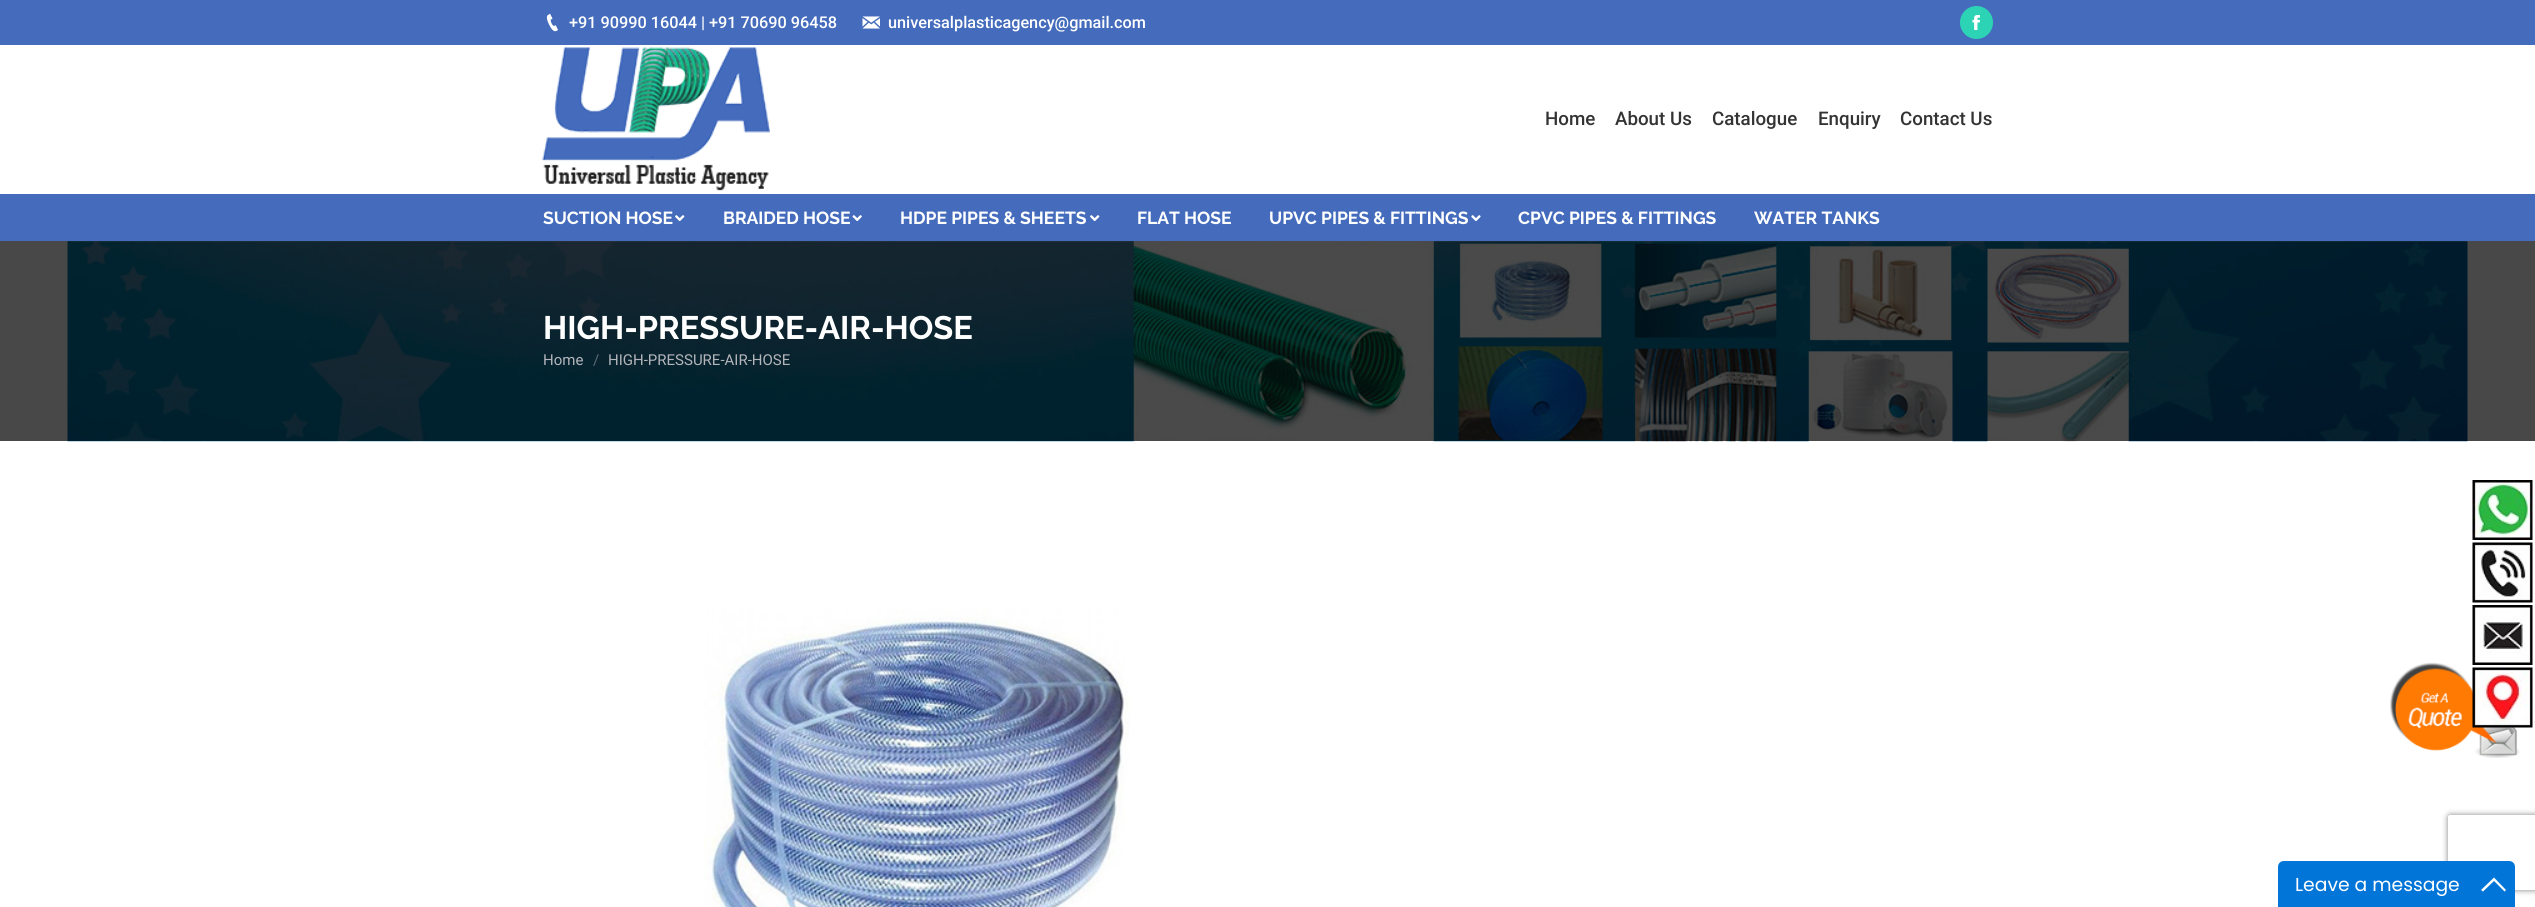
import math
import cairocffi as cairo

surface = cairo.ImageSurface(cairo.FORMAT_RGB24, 2535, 907)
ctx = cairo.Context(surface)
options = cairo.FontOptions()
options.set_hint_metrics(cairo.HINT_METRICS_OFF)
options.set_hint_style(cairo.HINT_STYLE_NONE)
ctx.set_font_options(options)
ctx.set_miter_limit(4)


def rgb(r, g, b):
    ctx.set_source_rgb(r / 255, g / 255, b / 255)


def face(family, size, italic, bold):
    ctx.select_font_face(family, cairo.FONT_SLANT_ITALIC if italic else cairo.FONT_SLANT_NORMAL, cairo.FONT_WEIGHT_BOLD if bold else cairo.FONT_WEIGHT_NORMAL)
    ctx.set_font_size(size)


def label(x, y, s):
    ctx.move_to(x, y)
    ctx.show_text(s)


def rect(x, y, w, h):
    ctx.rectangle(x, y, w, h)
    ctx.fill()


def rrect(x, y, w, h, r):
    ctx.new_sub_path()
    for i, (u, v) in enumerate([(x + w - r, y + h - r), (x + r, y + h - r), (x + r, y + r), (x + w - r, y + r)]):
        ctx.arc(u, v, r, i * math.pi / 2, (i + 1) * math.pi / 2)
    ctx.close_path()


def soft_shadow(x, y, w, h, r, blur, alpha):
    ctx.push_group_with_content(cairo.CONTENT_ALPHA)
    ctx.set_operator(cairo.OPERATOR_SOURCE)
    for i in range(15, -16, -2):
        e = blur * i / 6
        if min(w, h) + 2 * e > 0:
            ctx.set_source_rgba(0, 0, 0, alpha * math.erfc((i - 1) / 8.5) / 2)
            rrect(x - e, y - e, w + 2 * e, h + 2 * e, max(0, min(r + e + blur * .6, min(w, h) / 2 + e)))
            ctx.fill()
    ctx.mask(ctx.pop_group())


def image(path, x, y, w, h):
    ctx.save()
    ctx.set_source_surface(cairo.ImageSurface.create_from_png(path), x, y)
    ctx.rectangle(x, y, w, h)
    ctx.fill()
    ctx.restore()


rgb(255, 255, 255)
ctx.paint()
rgb(69, 108, 188)
rect(0, 0, 2535, 45)
image('image0.png', 546, 13, 12, 19)
face('Roboto Medium', 16.25, 0, 0)
rgb(255, 255, 255)
label(569, 28, '+91 90990 16044 | +91 70690 96458')
image('image1.png', 862, 16, 18, 13)
label(888, 28, 'universalplasticagency@gmail.com')
rgb(44, 211, 180)
ctx.new_path()
ctx.arc(1976.5, 22.5, 16.5, 0, 2 * math.pi)
ctx.fill()
image('image2.png', 1972, 15, 8, 15)
image('image3.png', 542, 47, 228, 144)
face('Roboto Medium', 18.75, 0, 0)
rgb(51, 51, 51)
label(1545, 125, 'Home')
label(1615, 125, 'About Us')
label(1712, 125, 'Catalogue')
label(1818, 125, 'Enquiry')
label(1900, 125, 'Contact Us')
rgb(69, 108, 188)
rect(0, 194, 2535, 47)
face('Raleway', 17.5, 0, 1)
rgb(255, 255, 255)
label(543, 224, 'SUCTION HOSE')
image('image4.png', 675, 215, 10, 7)
label(723, 224, 'BRAIDED HOSE')
image('image5.png', 852, 215, 10, 7)
label(900, 224, 'HDPE PIPES & SHEETS')
image('image4.png', 1090, 215, 10, 7)
label(1137, 224, 'FLAT HOSE')
label(1269, 224, 'UPVC PIPES & FITTINGS')
image('image6.png', 1471, 215, 10, 7)
label(1518, 224, 'CPVC PIPES & FITTINGS')
label(1754, 224, 'WATER TANKS')
rgb(247, 247, 247)
rect(0, 241, 2535, 200)
image('image7.png', 67, 241, 2401, 201)
ctx.set_source_rgba(0, 0, 0, 0.71)
rect(0, 241, 2535, 200)
face('Raleway', 32.5, 0, 1)
rgb(255, 255, 255)
label(543, 339, 'HIGH-PRESSURE-AIR-HOSE')
face('Roboto', 15, 0, 0)
rgb(180, 181, 187)
label(543, 365, 'Home')
rgb(93, 108, 117)
label(593, 365, '/')
rgb(180, 181, 187)
label(608, 365, 'HIGH-PRESSURE-AIR-HOSE')
image('image8.png', 704, 609, 426, 298)
image('image9.png', 2472, 480, 61, 60)
image('image10.png', 2472, 542, 61, 61)
image('image12.png', 2390, 662, 130, 96)
image('image11.png', 2472, 605, 61, 60)
image('image13.png', 2472, 667, 61, 61)
ctx.save()
ctx.set_fill_rule(cairo.FILL_RULE_EVEN_ODD)
ctx.new_path()
ctx.move_to(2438, 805)
ctx.line_to(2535, 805)
ctx.line_to(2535, 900)
ctx.line_to(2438, 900)
ctx.close_path()
ctx.move_to(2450.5, 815)
ctx.line_to(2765.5, 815)
ctx.curve_to(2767, 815, 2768, 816, 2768, 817.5)
ctx.line_to(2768, 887.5)
ctx.curve_to(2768, 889, 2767, 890, 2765.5, 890)
ctx.line_to(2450.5, 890)
ctx.curve_to(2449, 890, 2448, 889, 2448, 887.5)
ctx.line_to(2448, 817.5)
ctx.curve_to(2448, 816, 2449, 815, 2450.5, 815)
ctx.close_path()
ctx.clip()
rgb(128, 128, 128)
soft_shadow(2448, 815, 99, 75, 2.5, 3, 1)
ctx.restore()
rgb(2, 117, 216)
ctx.new_path()
ctx.move_to(2284, 861)
ctx.line_to(2509, 861)
ctx.curve_to(2512.5, 861, 2515, 863.5, 2515, 867)
ctx.line_to(2515, 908)
ctx.line_to(2278, 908)
ctx.line_to(2278, 867)
ctx.curve_to(2278, 863.5, 2280.5, 861, 2284, 861)
ctx.close_path()
ctx.fill()
face('Poppins', 18.75, 0, 0)
rgb(255, 255, 255)
label(2295, 891, 'Leave a message')
ctx.new_path()
ctx.move_to(2494, 877.5)
ctx.line_to(2506, 890)
ctx.line_to(2504.5, 891.5)
ctx.line_to(2494, 881)
ctx.line_to(2483, 891.5)
ctx.line_to(2481, 890)
ctx.close_path()
ctx.fill()
surface.write_to_png('render.png')
